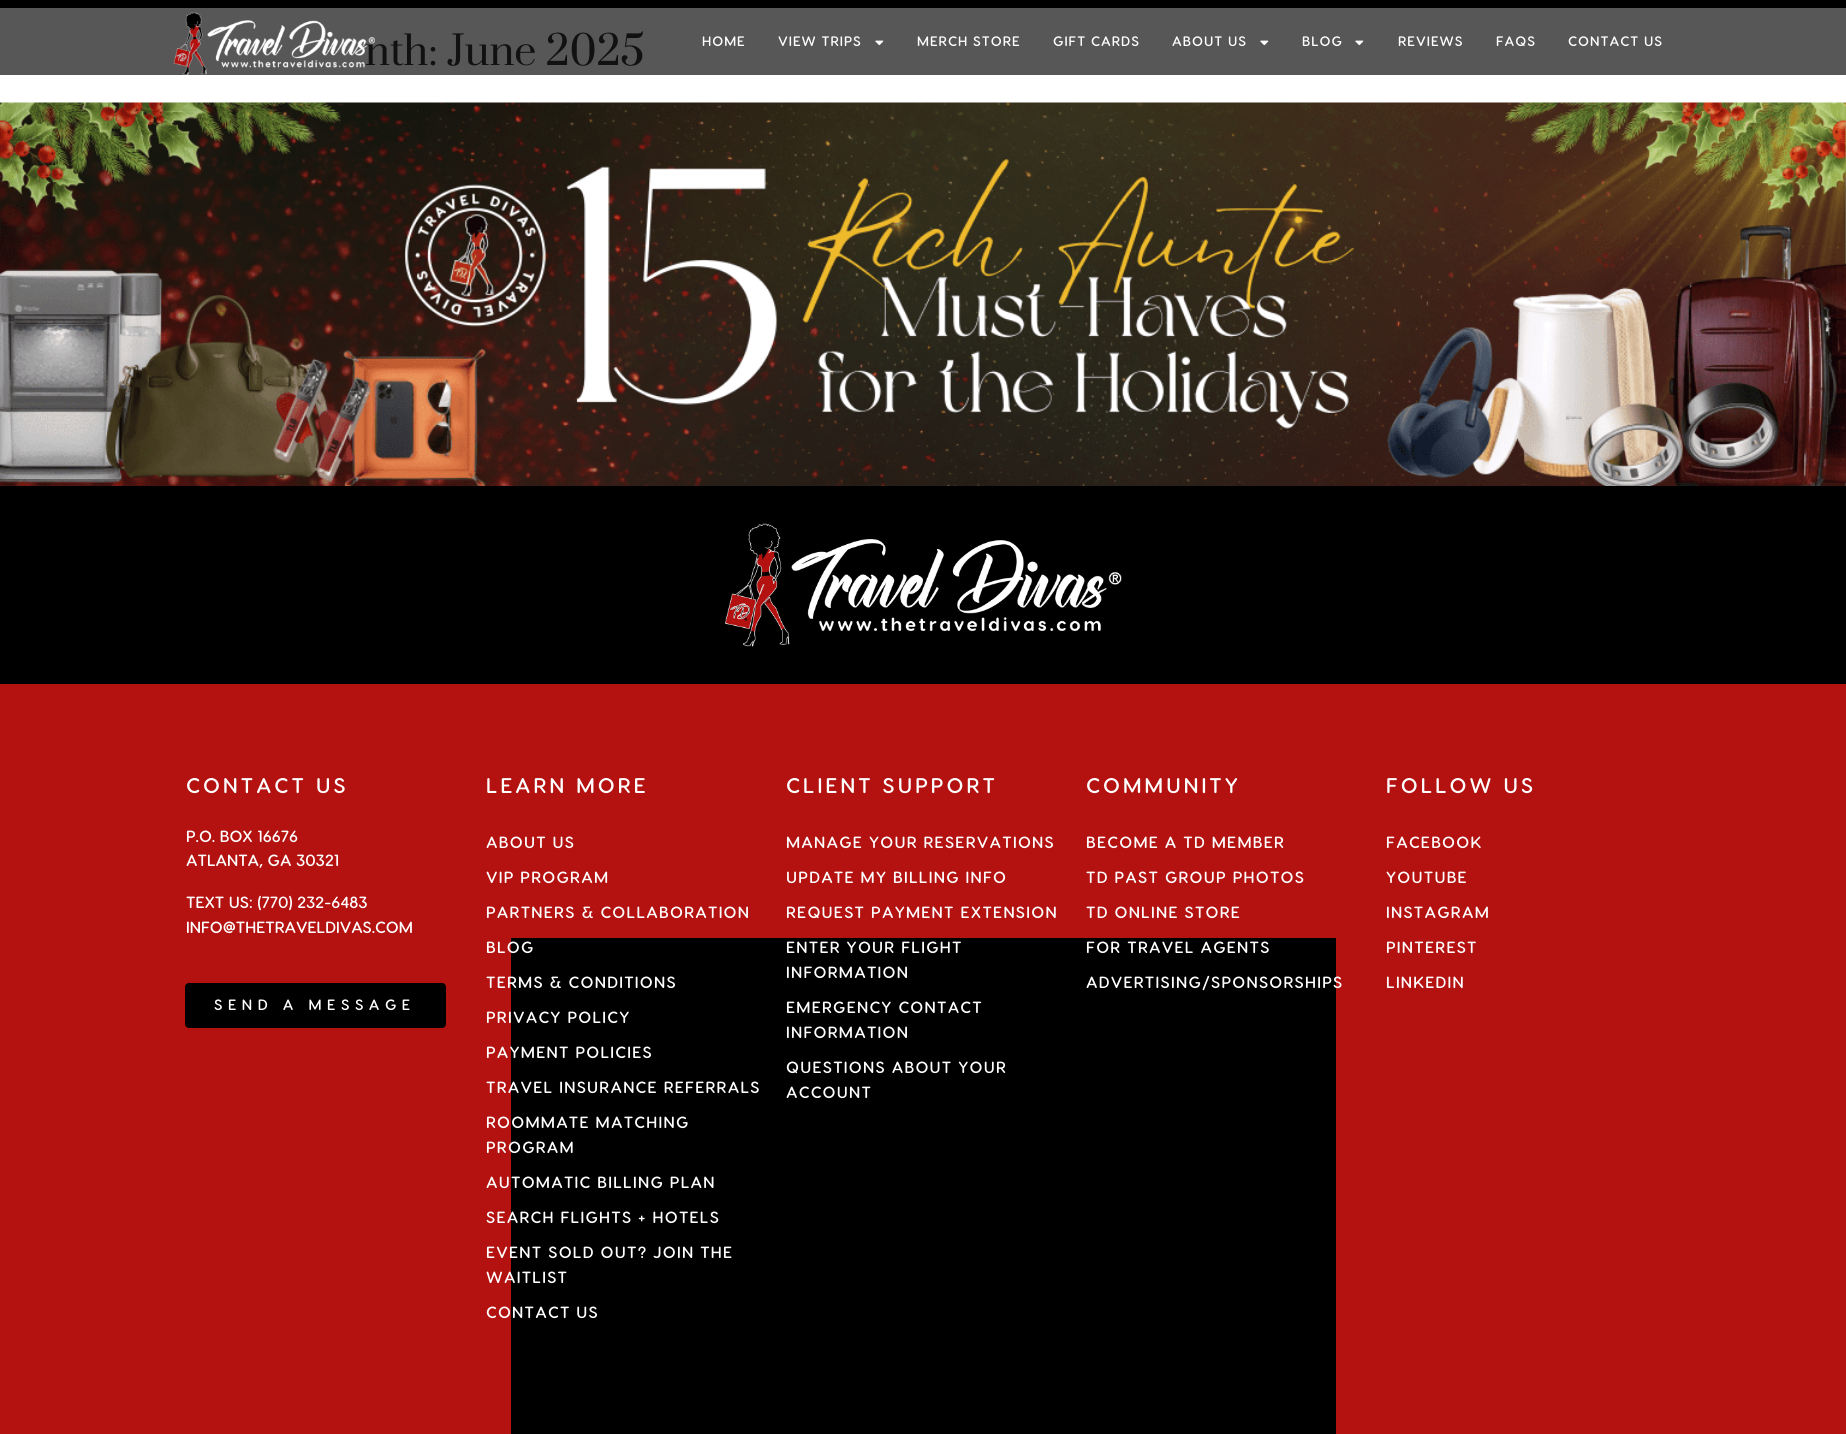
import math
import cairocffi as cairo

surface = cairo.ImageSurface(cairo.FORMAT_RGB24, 1846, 1434)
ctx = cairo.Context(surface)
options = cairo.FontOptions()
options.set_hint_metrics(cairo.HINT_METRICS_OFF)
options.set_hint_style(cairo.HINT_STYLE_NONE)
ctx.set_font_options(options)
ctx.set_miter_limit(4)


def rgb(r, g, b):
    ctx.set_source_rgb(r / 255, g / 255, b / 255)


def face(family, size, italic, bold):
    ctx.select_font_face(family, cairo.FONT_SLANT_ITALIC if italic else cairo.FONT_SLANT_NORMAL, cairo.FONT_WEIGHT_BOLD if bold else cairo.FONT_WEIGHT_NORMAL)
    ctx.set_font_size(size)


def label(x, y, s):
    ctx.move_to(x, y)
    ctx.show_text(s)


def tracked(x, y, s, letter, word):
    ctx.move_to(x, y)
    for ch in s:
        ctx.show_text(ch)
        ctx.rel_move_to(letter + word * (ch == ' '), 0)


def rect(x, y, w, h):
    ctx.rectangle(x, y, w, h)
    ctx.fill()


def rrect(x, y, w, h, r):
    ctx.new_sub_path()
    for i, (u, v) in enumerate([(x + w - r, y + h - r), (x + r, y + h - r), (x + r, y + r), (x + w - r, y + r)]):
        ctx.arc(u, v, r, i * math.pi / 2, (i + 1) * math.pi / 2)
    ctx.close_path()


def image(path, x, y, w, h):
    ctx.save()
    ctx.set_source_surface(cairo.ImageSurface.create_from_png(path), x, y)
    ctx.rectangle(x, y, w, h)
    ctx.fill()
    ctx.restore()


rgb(255, 255, 255)
ctx.paint()
face('Suranna', 50, 0, 0)
rgb(51, 51, 51)
label(365, 65, 'nth: June 2025')
rgb(0, 0, 0)
rect(0, 0, 1846, 8)
ctx.set_source_rgba(0, 0, 0, 0.66)
rect(0, 8, 1846, 67)
image('image0.png', 173, 12, 202, 63)
face('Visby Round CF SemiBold', 13.75, 0, 0)
rgb(255, 255, 255)
tracked(702, 46, 'HOME', 1, 0)
tracked(778, 46, 'VIEW TRIPS', 1, 0)
image('image1.png', 875, 40, 9, 6)
tracked(917, 46, 'MERCH STORE', 1, 0)
tracked(1053, 46, 'GIFT CARDS', 1, 0)
tracked(1172, 46, 'ABOUT US', 1, 0)
image('image1.png', 1260, 40, 9, 6)
tracked(1302, 46, 'BLOG', 1, 0)
image('image1.png', 1355, 40, 9, 6)
tracked(1398, 46, 'REVIEWS', 1, 0)
tracked(1496, 46, 'FAQS', 1, 0)
tracked(1568, 46, 'CONTACT US', 1, 0)
image('image2.png', 0, 102, 1846, 384)
rgb(0, 0, 0)
rect(0, 486, 1846, 198)
image('image3.png', 725, 523, 397, 124)
rgb(179, 18, 16)
rect(0, 684, 1846, 750)
face('Visby Round CF SemiBold', 21.25, 0, 0)
rgb(255, 255, 255)
tracked(186, 793, 'CONTACT US', 3.1, 0)
face('Visby Round CF SemiBold', 16.25, 0, 0)
label(186, 842, 'P.O. BOX 16676')
label(186, 866, 'ATLANTA, GA 30321')
label(186, 908, 'TEXT US: (770) 232-6483')
label(186, 933, 'INFO@THETRAVELDIVAS.COM')
rgb(0, 0, 0)
rrect(185, 983, 261, 45, 4)
ctx.fill()
face('Visby Round CF SemiBold', 15, 0, 0)
rgb(255, 255, 255)
tracked(214, 1010, 'SEND A MESSAGE', 5.5, 0)
face('Visby Round CF SemiBold', 21.25, 0, 0)
tracked(486, 793, 'LEARN MORE', 3.1, 0)
face('Visby Round CF SemiBold', 16.25, 0, 0)
tracked(486, 848, 'ABOUT US', 1.25, 0)
tracked(486, 883, 'VIP PROGRAM', 1.25, 0)
tracked(486, 918, 'PARTNERS & COLLABORATION', 1.25, 0)
rgb(0, 0, 0)
rect(511, 938, 825, 496)
rgb(255, 255, 255)
tracked(486, 953, 'BLOG', 1.25, 0)
tracked(486, 988, 'TERMS & CONDITIONS', 1.25, 0)
tracked(486, 1023, 'PRIVACY POLICY', 1.25, 0)
tracked(486, 1058, 'PAYMENT POLICIES', 1.25, 0)
tracked(486, 1093, 'TRAVEL INSURANCE REFERRALS', 1.25, 0)
tracked(486, 1128, 'ROOMMATE MATCHING', 1.25, 0)
tracked(486, 1153, 'PROGRAM', 1.25, 0)
tracked(486, 1188, 'AUTOMATIC BILLING PLAN', 1.25, 0)
tracked(486, 1223, 'SEARCH FLIGHTS + HOTELS', 1.25, 0)
tracked(486, 1258, 'EVENT SOLD OUT? JOIN THE', 1.25, 0)
tracked(486, 1283, 'WAITLIST', 1.25, 0)
tracked(486, 1318, 'CONTACT US', 1.25, 0)
face('Visby Round CF SemiBold', 21.25, 0, 0)
tracked(786, 793, 'CLIENT SUPPORT', 3.1, 0)
face('Visby Round CF SemiBold', 16.25, 0, 0)
tracked(786, 848, 'MANAGE YOUR RESERVATIONS', 1.25, 0)
tracked(786, 883, 'UPDATE MY BILLING INFO', 1.25, 0)
tracked(786, 918, 'REQUEST PAYMENT EXTENSION', 1.25, 0)
tracked(786, 953, 'ENTER YOUR FLIGHT', 1.25, 0)
tracked(786, 978, 'INFORMATION', 1.25, 0)
tracked(786, 1013, 'EMERGENCY CONTACT', 1.25, 0)
tracked(786, 1038, 'INFORMATION', 1.25, 0)
tracked(786, 1073, 'QUESTIONS ABOUT YOUR', 1.25, 0)
tracked(786, 1098, 'ACCOUNT', 1.25, 0)
face('Visby Round CF SemiBold', 21.25, 0, 0)
tracked(1086, 793, 'COMMUNITY', 3.1, 0)
face('Visby Round CF SemiBold', 16.25, 0, 0)
tracked(1086, 848, 'BECOME A TD MEMBER', 1.25, 0)
tracked(1086, 883, 'TD PAST GROUP PHOTOS', 1.25, 0)
tracked(1086, 918, 'TD ONLINE STORE', 1.25, 0)
tracked(1086, 953, 'FOR TRAVEL AGENTS', 1.25, 0)
tracked(1086, 988, 'ADVERTISING/SPONSORSHIPS', 1.25, 0)
face('Visby Round CF SemiBold', 21.25, 0, 0)
tracked(1386, 793, 'FOLLOW US', 3.1, 0)
face('Visby Round CF SemiBold', 16.25, 0, 0)
tracked(1386, 848, 'FACEBOOK', 1.25, 0)
tracked(1386, 883, 'YOUTUBE', 1.25, 0)
tracked(1386, 918, 'INSTAGRAM', 1.25, 0)
tracked(1386, 953, 'PINTEREST', 1.25, 0)
tracked(1386, 988, 'LINKEDIN', 1.25, 0)
surface.write_to_png('render.png')
